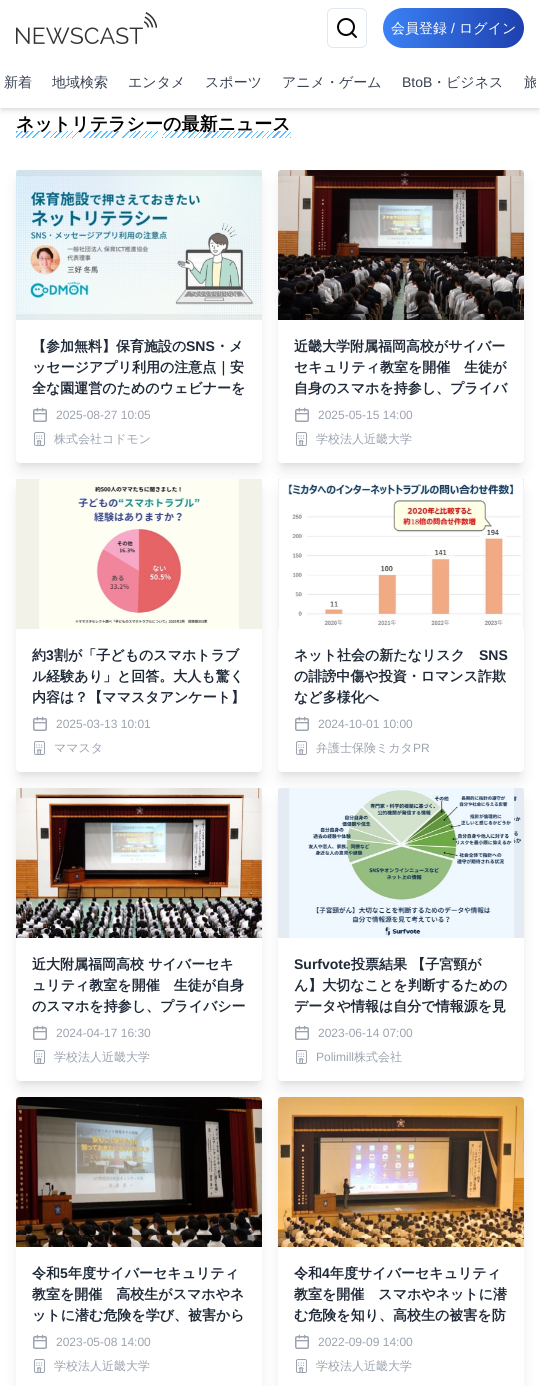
import math
import cairocffi as cairo

surface = cairo.ImageSurface(cairo.FORMAT_RGB24, 540, 1386)
ctx = cairo.Context(surface)
options = cairo.FontOptions()
options.set_hint_metrics(cairo.HINT_METRICS_OFF)
options.set_hint_style(cairo.HINT_STYLE_NONE)
ctx.set_font_options(options)
ctx.set_miter_limit(4)


def rgb(r, g, b):
    ctx.set_source_rgb(r / 255, g / 255, b / 255)


def face(family, size, italic, bold):
    ctx.select_font_face(family, cairo.FONT_SLANT_ITALIC if italic else cairo.FONT_SLANT_NORMAL, cairo.FONT_WEIGHT_BOLD if bold else cairo.FONT_WEIGHT_NORMAL)
    ctx.set_font_size(size)


def label(x, y, s):
    ctx.move_to(x, y)
    ctx.show_text(s)


def rect(x, y, w, h):
    ctx.rectangle(x, y, w, h)
    ctx.fill()


def rrect(x, y, w, h, r):
    ctx.new_sub_path()
    for i, (u, v) in enumerate([(x + w - r, y + h - r), (x + r, y + h - r), (x + r, y + r), (x + w - r, y + r)]):
        ctx.arc(u, v, r, i * math.pi / 2, (i + 1) * math.pi / 2)
    ctx.close_path()


def soft_shadow(x, y, w, h, r, blur, alpha):
    ctx.push_group_with_content(cairo.CONTENT_ALPHA)
    ctx.set_operator(cairo.OPERATOR_SOURCE)
    for i in range(15, -16, -2):
        e = blur * i / 6
        if min(w, h) + 2 * e > 0:
            ctx.set_source_rgba(0, 0, 0, alpha * math.erfc((i - 1) / 8.5) / 2)
            rrect(x - e, y - e, w + 2 * e, h + 2 * e, max(0, min(r + e + blur * .6, min(w, h) / 2 + e)))
            ctx.fill()
    ctx.mask(ctx.pop_group())


def image(path, x, y, w, h):
    ctx.save()
    ctx.set_source_surface(cairo.ImageSurface.create_from_png(path), x, y)
    ctx.rectangle(x, y, w, h)
    ctx.fill()
    ctx.restore()


rgb(255, 255, 255)
ctx.paint()
rgb(0, 0, 0)
soft_shadow(2, 4, 536, 104, 0, 2, 0.1)
soft_shadow(1, 5, 538, 106, 0, 3, 0.1)
rgb(255, 255, 255)
rect(0, 0, 540, 108)
image('image0.png', 16, 12, 141, 32)
rrect(327.5, 8.5, 39, 39, 5.5)
rgb(226, 232, 240)
ctx.set_line_width(1)
ctx.stroke()
ctx.arc(346, 27, 8, 0, 2 * math.pi)
rgb(0, 0, 0)
ctx.set_line_width(2)
ctx.stroke()
ctx.new_path()
ctx.move_to(356, 37)
ctx.line_to(351.5, 32.5)
ctx.set_line_cap(cairo.LINE_CAP_ROUND)
ctx.set_line_join(cairo.LINE_JOIN_ROUND)
ctx.stroke()
gradient = cairo.LinearGradient(383, 28, 524, 28)
gradient.add_color_stop_rgba(0, 0.231, 0.51, 0.965, 1)
gradient.add_color_stop_rgba(1, 0.118, 0.251, 0.686, 1)
ctx.set_source(gradient)
rrect(383, 8, 141, 40, 20)
ctx.fill()
face('WenQuanYi Zen Hei Medium', 14, 0, 0)
rgb(255, 255, 255)
label(391, 33, '会員登録')
face('Liberation Sans', 14, 0, 0)
label(451, 33, '/')
face('WenQuanYi Zen Hei Medium', 14, 0, 0)
label(459, 33, 'ログイン')
rgb(55, 65, 81)
label(4, 87, '新着')
label(52, 87, '地域検索')
label(128, 87, 'エンタメ')
label(205, 87, 'スポーツ')
label(282, 87, 'アニメ・ゲーム')
face('Liberation Sans', 14, 0, 0)
label(402, 87, 'BtoB')
face('WenQuanYi Zen Hei Medium', 14, 0, 0)
label(432, 87, '・ビジネス')
ctx.save()
ctx.rectangle(0, 56, 536, 52)
ctx.clip()
label(524, 87, '旅')
ctx.restore()
gradient = cairo.LinearGradient(128, 173, 49, 94)
gradient.add_color_stop_rgba(0, 0.384, 0.824, 1, 1)
gradient.add_color_stop_rgba(0.01, 0.384, 0.663, 1, 1)
gradient.add_color_stop_rgba(0.01, 1, 1, 1, 1)
gradient.add_color_stop_rgba(0.04, 1, 1, 1, 1)
gradient.add_color_stop_rgba(0.04, 0.384, 0.824, 1, 1)
gradient.add_color_stop_rgba(0.04, 0.384, 0.663, 1, 1)
gradient.add_color_stop_rgba(0.04, 1, 1, 1, 1)
gradient.add_color_stop_rgba(0.07, 1, 1, 1, 1)
gradient.add_color_stop_rgba(0.07, 0.384, 0.824, 1, 1)
gradient.add_color_stop_rgba(0.08, 0.384, 0.663, 1, 1)
gradient.add_color_stop_rgba(0.08, 1, 1, 1, 1)
gradient.add_color_stop_rgba(0.11, 1, 1, 1, 1)
gradient.add_color_stop_rgba(0.11, 0.384, 0.824, 1, 1)
gradient.add_color_stop_rgba(0.12, 0.384, 0.663, 1, 1)
gradient.add_color_stop_rgba(0.12, 1, 1, 1, 1)
gradient.add_color_stop_rgba(0.14, 1, 1, 1, 1)
gradient.add_color_stop_rgba(0.14, 0.384, 0.824, 1, 1)
gradient.add_color_stop_rgba(0.15, 0.384, 0.663, 1, 1)
gradient.add_color_stop_rgba(0.15, 1, 1, 1, 1)
gradient.add_color_stop_rgba(0.18, 1, 1, 1, 1)
gradient.add_color_stop_rgba(0.18, 0.384, 0.824, 1, 1)
gradient.add_color_stop_rgba(0.19, 0.384, 0.663, 1, 1)
gradient.add_color_stop_rgba(0.19, 1, 1, 1, 1)
gradient.add_color_stop_rgba(0.21, 1, 1, 1, 1)
gradient.add_color_stop_rgba(0.21, 0.384, 0.824, 1, 1)
gradient.add_color_stop_rgba(0.22, 0.384, 0.663, 1, 1)
gradient.add_color_stop_rgba(0.22, 1, 1, 1, 1)
gradient.add_color_stop_rgba(0.25, 1, 1, 1, 1)
gradient.add_color_stop_rgba(0.25, 0.384, 0.824, 1, 1)
gradient.add_color_stop_rgba(0.26, 0.384, 0.663, 1, 1)
gradient.add_color_stop_rgba(0.26, 1, 1, 1, 1)
gradient.add_color_stop_rgba(0.29, 1, 1, 1, 1)
gradient.add_color_stop_rgba(0.29, 0.384, 0.824, 1, 1)
gradient.add_color_stop_rgba(0.29, 0.384, 0.663, 1, 1)
gradient.add_color_stop_rgba(0.29, 1, 1, 1, 1)
gradient.add_color_stop_rgba(0.32, 1, 1, 1, 1)
gradient.add_color_stop_rgba(0.32, 0.384, 0.824, 1, 1)
gradient.add_color_stop_rgba(0.33, 0.384, 0.663, 1, 1)
gradient.add_color_stop_rgba(0.33, 1, 1, 1, 1)
gradient.add_color_stop_rgba(0.36, 1, 1, 1, 1)
gradient.add_color_stop_rgba(0.36, 0.384, 0.824, 1, 1)
gradient.add_color_stop_rgba(0.37, 0.384, 0.663, 1, 1)
gradient.add_color_stop_rgba(0.37, 1, 1, 1, 1)
gradient.add_color_stop_rgba(0.39, 1, 1, 1, 1)
gradient.add_color_stop_rgba(0.39, 0.384, 0.824, 1, 1)
gradient.add_color_stop_rgba(0.4, 0.384, 0.663, 1, 1)
gradient.add_color_stop_rgba(0.4, 1, 1, 1, 1)
gradient.add_color_stop_rgba(0.43, 1, 1, 1, 1)
gradient.add_color_stop_rgba(0.43, 0.384, 0.824, 1, 1)
gradient.add_color_stop_rgba(0.44, 0.384, 0.663, 1, 1)
gradient.add_color_stop_rgba(0.44, 1, 1, 1, 1)
gradient.add_color_stop_rgba(0.46, 1, 1, 1, 1)
gradient.add_color_stop_rgba(0.46, 0.384, 0.824, 1, 1)
gradient.add_color_stop_rgba(0.47, 0.384, 0.663, 1, 1)
gradient.add_color_stop_rgba(0.47, 1, 1, 1, 1)
gradient.add_color_stop_rgba(0.5, 1, 1, 1, 1)
gradient.add_color_stop_rgba(0.5, 0.384, 0.824, 1, 1)
gradient.add_color_stop_rgba(0.51, 0.384, 0.663, 1, 1)
gradient.add_color_stop_rgba(0.51, 1, 1, 1, 1)
gradient.add_color_stop_rgba(0.54, 1, 1, 1, 1)
gradient.add_color_stop_rgba(0.54, 0.384, 0.824, 1, 1)
gradient.add_color_stop_rgba(0.54, 0.384, 0.663, 1, 1)
gradient.add_color_stop_rgba(0.54, 1, 1, 1, 1)
gradient.add_color_stop_rgba(0.57, 1, 1, 1, 1)
gradient.add_color_stop_rgba(0.57, 0.384, 0.824, 1, 1)
gradient.add_color_stop_rgba(0.58, 0.384, 0.663, 1, 1)
gradient.add_color_stop_rgba(0.58, 1, 1, 1, 1)
gradient.add_color_stop_rgba(0.61, 1, 1, 1, 1)
gradient.add_color_stop_rgba(0.61, 0.384, 0.824, 1, 1)
gradient.add_color_stop_rgba(0.62, 0.384, 0.663, 1, 1)
gradient.add_color_stop_rgba(0.62, 1, 1, 1, 1)
gradient.add_color_stop_rgba(0.64, 1, 1, 1, 1)
gradient.add_color_stop_rgba(0.64, 0.384, 0.824, 1, 1)
gradient.add_color_stop_rgba(0.65, 0.384, 0.663, 1, 1)
gradient.add_color_stop_rgba(0.65, 1, 1, 1, 1)
gradient.add_color_stop_rgba(0.68, 1, 1, 1, 1)
gradient.add_color_stop_rgba(0.68, 0.384, 0.824, 1, 1)
gradient.add_color_stop_rgba(0.69, 0.384, 0.663, 1, 1)
gradient.add_color_stop_rgba(0.69, 1, 1, 1, 1)
gradient.add_color_stop_rgba(0.71, 1, 1, 1, 1)
gradient.add_color_stop_rgba(0.71, 0.384, 0.824, 1, 1)
gradient.add_color_stop_rgba(0.72, 0.384, 0.663, 1, 1)
gradient.add_color_stop_rgba(0.72, 1, 1, 1, 1)
gradient.add_color_stop_rgba(0.75, 1, 1, 1, 1)
gradient.add_color_stop_rgba(0.75, 0.384, 0.824, 1, 1)
gradient.add_color_stop_rgba(0.76, 0.384, 0.663, 1, 1)
gradient.add_color_stop_rgba(0.76, 1, 1, 1, 1)
gradient.add_color_stop_rgba(0.79, 1, 1, 1, 1)
gradient.add_color_stop_rgba(0.79, 0.384, 0.824, 1, 1)
gradient.add_color_stop_rgba(0.79, 0.384, 0.663, 1, 1)
gradient.add_color_stop_rgba(0.79, 1, 1, 1, 1)
gradient.add_color_stop_rgba(0.82, 1, 1, 1, 1)
gradient.add_color_stop_rgba(0.82, 0.384, 0.824, 1, 1)
gradient.add_color_stop_rgba(0.83, 0.384, 0.663, 1, 1)
gradient.add_color_stop_rgba(0.83, 1, 1, 1, 1)
gradient.add_color_stop_rgba(0.86, 1, 1, 1, 1)
gradient.add_color_stop_rgba(0.86, 0.384, 0.824, 1, 1)
gradient.add_color_stop_rgba(0.87, 0.384, 0.663, 1, 1)
gradient.add_color_stop_rgba(0.87, 1, 1, 1, 1)
gradient.add_color_stop_rgba(0.89, 1, 1, 1, 1)
gradient.add_color_stop_rgba(0.89, 0.384, 0.824, 1, 1)
gradient.add_color_stop_rgba(0.9, 0.384, 0.663, 1, 1)
gradient.add_color_stop_rgba(0.9, 1, 1, 1, 1)
gradient.add_color_stop_rgba(0.93, 1, 1, 1, 1)
gradient.add_color_stop_rgba(0.93, 0.384, 0.824, 1, 1)
gradient.add_color_stop_rgba(0.94, 0.384, 0.663, 1, 1)
gradient.add_color_stop_rgba(0.94, 1, 1, 1, 1)
gradient.add_color_stop_rgba(0.96, 1, 1, 1, 1)
gradient.add_color_stop_rgba(0.96, 0.384, 0.824, 1, 1)
gradient.add_color_stop_rgba(0.97, 0.384, 0.663, 1, 1)
gradient.add_color_stop_rgba(0.97, 1, 1, 1, 1)
gradient.add_color_stop_rgba(1, 1, 1, 1, 1)
ctx.set_source(gradient)
rect(16, 131, 147, 7)
gradient = cairo.LinearGradient(261, 168, 193, 100)
gradient.add_color_stop_rgba(0, 0.384, 0.824, 1, 1)
gradient.add_color_stop_rgba(0.01, 0.384, 0.663, 1, 1)
gradient.add_color_stop_rgba(0.01, 1, 1, 1, 1)
gradient.add_color_stop_rgba(0.04, 1, 1, 1, 1)
gradient.add_color_stop_rgba(0.04, 0.384, 0.824, 1, 1)
gradient.add_color_stop_rgba(0.05, 0.384, 0.663, 1, 1)
gradient.add_color_stop_rgba(0.05, 1, 1, 1, 1)
gradient.add_color_stop_rgba(0.08, 1, 1, 1, 1)
gradient.add_color_stop_rgba(0.08, 0.384, 0.824, 1, 1)
gradient.add_color_stop_rgba(0.09, 0.384, 0.663, 1, 1)
gradient.add_color_stop_rgba(0.09, 1, 1, 1, 1)
gradient.add_color_stop_rgba(0.12, 1, 1, 1, 1)
gradient.add_color_stop_rgba(0.12, 0.384, 0.824, 1, 1)
gradient.add_color_stop_rgba(0.14, 0.384, 0.663, 1, 1)
gradient.add_color_stop_rgba(0.14, 1, 1, 1, 1)
gradient.add_color_stop_rgba(0.17, 1, 1, 1, 1)
gradient.add_color_stop_rgba(0.17, 0.384, 0.824, 1, 1)
gradient.add_color_stop_rgba(0.18, 0.384, 0.663, 1, 1)
gradient.add_color_stop_rgba(0.18, 1, 1, 1, 1)
gradient.add_color_stop_rgba(0.21, 1, 1, 1, 1)
gradient.add_color_stop_rgba(0.21, 0.384, 0.824, 1, 1)
gradient.add_color_stop_rgba(0.22, 0.384, 0.663, 1, 1)
gradient.add_color_stop_rgba(0.22, 1, 1, 1, 1)
gradient.add_color_stop_rgba(0.25, 1, 1, 1, 1)
gradient.add_color_stop_rgba(0.25, 0.384, 0.824, 1, 1)
gradient.add_color_stop_rgba(0.26, 0.384, 0.663, 1, 1)
gradient.add_color_stop_rgba(0.26, 1, 1, 1, 1)
gradient.add_color_stop_rgba(0.29, 1, 1, 1, 1)
gradient.add_color_stop_rgba(0.29, 0.384, 0.824, 1, 1)
gradient.add_color_stop_rgba(0.3, 0.384, 0.663, 1, 1)
gradient.add_color_stop_rgba(0.3, 1, 1, 1, 1)
gradient.add_color_stop_rgba(0.33, 1, 1, 1, 1)
gradient.add_color_stop_rgba(0.33, 0.384, 0.824, 1, 1)
gradient.add_color_stop_rgba(0.34, 0.384, 0.663, 1, 1)
gradient.add_color_stop_rgba(0.34, 1, 1, 1, 1)
gradient.add_color_stop_rgba(0.38, 1, 1, 1, 1)
gradient.add_color_stop_rgba(0.38, 0.384, 0.824, 1, 1)
gradient.add_color_stop_rgba(0.39, 0.384, 0.663, 1, 1)
gradient.add_color_stop_rgba(0.39, 1, 1, 1, 1)
gradient.add_color_stop_rgba(0.42, 1, 1, 1, 1)
gradient.add_color_stop_rgba(0.42, 0.384, 0.824, 1, 1)
gradient.add_color_stop_rgba(0.43, 0.384, 0.663, 1, 1)
gradient.add_color_stop_rgba(0.43, 1, 1, 1, 1)
gradient.add_color_stop_rgba(0.46, 1, 1, 1, 1)
gradient.add_color_stop_rgba(0.46, 0.384, 0.824, 1, 1)
gradient.add_color_stop_rgba(0.47, 0.384, 0.663, 1, 1)
gradient.add_color_stop_rgba(0.47, 1, 1, 1, 1)
gradient.add_color_stop_rgba(0.5, 1, 1, 1, 1)
gradient.add_color_stop_rgba(0.5, 0.384, 0.824, 1, 1)
gradient.add_color_stop_rgba(0.51, 0.384, 0.663, 1, 1)
gradient.add_color_stop_rgba(0.51, 1, 1, 1, 1)
gradient.add_color_stop_rgba(0.54, 1, 1, 1, 1)
gradient.add_color_stop_rgba(0.54, 0.384, 0.824, 1, 1)
gradient.add_color_stop_rgba(0.55, 0.384, 0.663, 1, 1)
gradient.add_color_stop_rgba(0.55, 1, 1, 1, 1)
gradient.add_color_stop_rgba(0.58, 1, 1, 1, 1)
gradient.add_color_stop_rgba(0.58, 0.384, 0.824, 1, 1)
gradient.add_color_stop_rgba(0.59, 0.384, 0.663, 1, 1)
gradient.add_color_stop_rgba(0.59, 1, 1, 1, 1)
gradient.add_color_stop_rgba(0.62, 1, 1, 1, 1)
gradient.add_color_stop_rgba(0.62, 0.384, 0.824, 1, 1)
gradient.add_color_stop_rgba(0.64, 0.384, 0.663, 1, 1)
gradient.add_color_stop_rgba(0.64, 1, 1, 1, 1)
gradient.add_color_stop_rgba(0.67, 1, 1, 1, 1)
gradient.add_color_stop_rgba(0.67, 0.384, 0.824, 1, 1)
gradient.add_color_stop_rgba(0.68, 0.384, 0.663, 1, 1)
gradient.add_color_stop_rgba(0.68, 1, 1, 1, 1)
gradient.add_color_stop_rgba(0.71, 1, 1, 1, 1)
gradient.add_color_stop_rgba(0.71, 0.384, 0.824, 1, 1)
gradient.add_color_stop_rgba(0.72, 0.384, 0.663, 1, 1)
gradient.add_color_stop_rgba(0.72, 1, 1, 1, 1)
gradient.add_color_stop_rgba(0.75, 1, 1, 1, 1)
gradient.add_color_stop_rgba(0.75, 0.384, 0.824, 1, 1)
gradient.add_color_stop_rgba(0.76, 0.384, 0.663, 1, 1)
gradient.add_color_stop_rgba(0.76, 1, 1, 1, 1)
gradient.add_color_stop_rgba(0.79, 1, 1, 1, 1)
gradient.add_color_stop_rgba(0.79, 0.384, 0.824, 1, 1)
gradient.add_color_stop_rgba(0.8, 0.384, 0.663, 1, 1)
gradient.add_color_stop_rgba(0.8, 1, 1, 1, 1)
gradient.add_color_stop_rgba(0.83, 1, 1, 1, 1)
gradient.add_color_stop_rgba(0.83, 0.384, 0.824, 1, 1)
gradient.add_color_stop_rgba(0.84, 0.384, 0.663, 1, 1)
gradient.add_color_stop_rgba(0.84, 1, 1, 1, 1)
gradient.add_color_stop_rgba(0.88, 1, 1, 1, 1)
gradient.add_color_stop_rgba(0.88, 0.384, 0.824, 1, 1)
gradient.add_color_stop_rgba(0.89, 0.384, 0.663, 1, 1)
gradient.add_color_stop_rgba(0.89, 1, 1, 1, 1)
gradient.add_color_stop_rgba(0.92, 1, 1, 1, 1)
gradient.add_color_stop_rgba(0.92, 0.384, 0.824, 1, 1)
gradient.add_color_stop_rgba(0.93, 0.384, 0.663, 1, 1)
gradient.add_color_stop_rgba(0.93, 1, 1, 1, 1)
gradient.add_color_stop_rgba(0.96, 1, 1, 1, 1)
gradient.add_color_stop_rgba(0.96, 0.384, 0.824, 1, 1)
gradient.add_color_stop_rgba(0.97, 0.384, 0.663, 1, 1)
gradient.add_color_stop_rgba(0.97, 1, 1, 1, 1)
gradient.add_color_stop_rgba(1, 1, 1, 1, 1)
ctx.set_source(gradient)
rect(163, 131, 128, 7)
face('WenQuanYi Zen Hei', 18, 0, 1)
rgb(0, 0, 0)
label(16, 130, 'ネットリテラシーの最新ニュース')
rgb(0, 0, 0)
soft_shadow(20, 178, 238, 285, 0, 3, 0.1)
soft_shadow(19, 183, 240, 287, 1, 7.5, 0.1)
rgb(255, 255, 255)
rrect(16, 170, 246, 293, 4)
ctx.fill()
image('image1.png', 16, 170, 246, 150)
ctx.set_source_rgba(0, 0, 0, 0.05)
rect(16, 170, 246, 150)
image('image2.png', 16, 176, 246, 138)
face('WenQuanYi Zen Hei', 14, 0, 1)
rgb(31, 41, 55)
label(32, 351, '【参加無料】保育施設の')
face('Liberation Sans', 14, 0, 1)
label(186, 351, 'SNS')
face('WenQuanYi Zen Hei', 14, 0, 1)
label(215, 351, '・メ')
label(32, 372, 'ッセージアプリ利用の注意点｜安')
label(32, 393, '全な園運営のためのウェビナーを')
image('image3.png', 33, 407, 14, 15)
face('Liberation Sans', 12, 0, 0)
rgb(156, 163, 175)
label(56, 419, '2025-08-27 10:05')
image('image4.png', 34, 432, 11, 14)
face('WenQuanYi Zen Hei Medium', 12, 0, 0)
label(54, 443, '株式会社コドモン')
rgb(0, 0, 0)
soft_shadow(282, 178, 238, 285, 0, 3, 0.1)
soft_shadow(281, 183, 240, 287, 1, 7.5, 0.1)
rgb(255, 255, 255)
rrect(278, 170, 246, 293, 4)
ctx.fill()
image('image5.png', 278, 170, 246, 150)
ctx.set_source_rgba(0, 0, 0, 0.05)
rect(278, 170, 246, 150)
image('image6.png', 278, 175, 246, 139)
face('WenQuanYi Zen Hei', 14, 0, 1)
rgb(31, 41, 55)
label(294, 351, '近畿大学附属福岡高校がサイバー')
label(294, 372, 'セキュリティ教室を開催　生徒が')
label(294, 393, '自身のスマホを持参し、プライバ')
image('image3.png', 295, 407, 14, 15)
face('Liberation Sans', 12, 0, 0)
rgb(156, 163, 175)
label(318, 419, '2025-05-15 14:00')
image('image4.png', 296, 432, 11, 14)
face('WenQuanYi Zen Hei Medium', 12, 0, 0)
label(316, 443, '学校法人近畿大学')
rgb(0, 0, 0)
soft_shadow(20, 487, 238, 285, 0, 3, 0.1)
soft_shadow(19, 492, 240, 287, 1, 7.5, 0.1)
rgb(255, 255, 255)
rrect(16, 479, 246, 293, 4)
ctx.fill()
image('image7.png', 16, 479, 246, 150)
ctx.set_source_rgba(0, 0, 0, 0.05)
rect(16, 479, 246, 150)
image('image8.png', 39, 479, 200, 150)
face('WenQuanYi Zen Hei', 14, 0, 1)
rgb(31, 41, 55)
label(32, 660, '約')
face('Liberation Sans', 14, 0, 1)
label(46, 660, '3')
face('WenQuanYi Zen Hei', 14, 0, 1)
label(54, 660, '割が「子どものスマホトラブ')
label(32, 681, 'ル経験あり」と回答。大人も驚く')
label(32, 702, '内容は？【ママスタアンケート】')
image('image3.png', 33, 716, 14, 15)
face('Liberation Sans', 12, 0, 0)
rgb(156, 163, 175)
label(56, 728, '2025-03-13 10:01')
image('image4.png', 34, 741, 11, 14)
face('WenQuanYi Zen Hei Medium', 12, 0, 0)
label(54, 752, 'ママスタ')
rgb(0, 0, 0)
soft_shadow(282, 487, 238, 285, 0, 3, 0.1)
soft_shadow(281, 492, 240, 287, 1, 7.5, 0.1)
rgb(255, 255, 255)
rrect(278, 479, 246, 293, 4)
ctx.fill()
ctx.set_source_rgba(0, 0, 0, 0.05)
rect(278, 479, 246, 150)
image('image9.png', 279, 479, 244, 150)
face('WenQuanYi Zen Hei', 14, 0, 1)
rgb(31, 41, 55)
label(294, 660, 'ネット社会の新たなリスク')
face('Liberation Sans', 14, 0, 1)
label(479, 660, 'SNS')
face('WenQuanYi Zen Hei', 14, 0, 1)
label(294, 681, 'の誹謗中傷や投資・ロマンス詐欺')
label(294, 702, 'など多様化へ')
image('image3.png', 295, 716, 14, 15)
face('Liberation Sans', 12, 0, 0)
rgb(156, 163, 175)
label(318, 728, '2024-10-01 10:00')
image('image4.png', 296, 741, 11, 14)
face('WenQuanYi Zen Hei Medium', 12, 0, 0)
label(316, 752, '弁護士保険ミカタ')
face('Liberation Sans', 12, 0, 0)
label(413, 752, 'PR')
rgb(0, 0, 0)
soft_shadow(20, 796, 238, 285, 0, 3, 0.1)
soft_shadow(19, 801, 240, 287, 1, 7.5, 0.1)
rgb(255, 255, 255)
rrect(16, 788, 246, 293, 4)
ctx.fill()
image('image10.png', 16, 788, 246, 150)
ctx.set_source_rgba(0, 0, 0, 0.05)
rect(16, 788, 246, 150)
image('image11.png', 16, 798, 246, 131)
face('WenQuanYi Zen Hei', 14, 0, 1)
rgb(31, 41, 55)
label(32, 969, '近大附属福岡高校 サイバーセキ')
label(32, 990, 'ュリティ教室を開催　生徒が自身')
label(32, 1011, 'のスマホを持参し、プライバシー')
image('image3.png', 33, 1025, 14, 15)
face('Liberation Sans', 12, 0, 0)
rgb(156, 163, 175)
label(56, 1037, '2024-04-17 16:30')
image('image4.png', 34, 1050, 11, 14)
face('WenQuanYi Zen Hei Medium', 12, 0, 0)
label(54, 1061, '学校法人近畿大学')
rgb(0, 0, 0)
soft_shadow(282, 796, 238, 285, 0, 3, 0.1)
soft_shadow(281, 801, 240, 287, 1, 7.5, 0.1)
rgb(255, 255, 255)
rrect(278, 788, 246, 293, 4)
ctx.fill()
image('image12.png', 278, 788, 246, 150)
ctx.set_source_rgba(0, 0, 0, 0.05)
rect(278, 788, 246, 150)
image('image13.png', 289, 788, 226, 150)
face('Liberation Sans', 14, 0, 1)
rgb(31, 41, 55)
label(294, 969, 'Surfvote')
face('WenQuanYi Zen Hei', 14, 0, 1)
label(351, 969, '投票結果 【子宮頸が')
label(294, 990, 'ん】大切なことを判断するための')
label(294, 1011, 'データや情報は自分で情報源を見')
image('image3.png', 295, 1025, 14, 15)
face('Liberation Sans', 12, 0, 0)
rgb(156, 163, 175)
label(318, 1037, '2023-06-14 07:00')
image('image4.png', 296, 1050, 11, 14)
label(316, 1061, 'Polimill')
face('WenQuanYi Zen Hei Medium', 12, 0, 0)
label(354, 1061, '株式会社')
rgb(0, 0, 0)
soft_shadow(19, 1110, 240, 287, 1, 7.5, 0.1)
rgb(255, 255, 255)
rrect(16, 1097, 246, 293, 4)
ctx.fill()
image('image14.png', 16, 1097, 246, 150)
ctx.set_source_rgba(0, 0, 0, 0.05)
rect(16, 1097, 246, 150)
image('image15.png', 16, 1108, 246, 128)
face('WenQuanYi Zen Hei', 14, 0, 1)
rgb(31, 41, 55)
label(32, 1278, '令和')
face('Liberation Sans', 14, 0, 1)
label(60, 1278, '5')
face('WenQuanYi Zen Hei', 14, 0, 1)
label(68, 1278, '年度サイバーセキュリティ')
label(32, 1299, '教室を開催　高校生がスマホやネ')
label(32, 1320, 'ットに潜む危険を学び、被害から')
image('image3.png', 33, 1334, 14, 15)
face('Liberation Sans', 12, 0, 0)
rgb(156, 163, 175)
label(56, 1346, '2023-05-08 14:00')
image('image4.png', 34, 1359, 11, 14)
face('WenQuanYi Zen Hei Medium', 12, 0, 0)
label(54, 1370, '学校法人近畿大学')
rgb(0, 0, 0)
soft_shadow(281, 1110, 240, 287, 1, 7.5, 0.1)
rgb(255, 255, 255)
rrect(278, 1097, 246, 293, 4)
ctx.fill()
image('image16.png', 278, 1097, 246, 150)
ctx.set_source_rgba(0, 0, 0, 0.05)
rect(278, 1097, 246, 150)
image('image17.png', 278, 1105, 246, 134)
face('WenQuanYi Zen Hei', 14, 0, 1)
rgb(31, 41, 55)
label(294, 1278, '令和')
face('Liberation Sans', 14, 0, 1)
label(322, 1278, '4')
face('WenQuanYi Zen Hei', 14, 0, 1)
label(330, 1278, '年度サイバーセキュリティ')
label(294, 1299, '教室を開催　スマホやネットに潜')
label(294, 1320, 'む危険を知り、高校生の被害を防')
image('image3.png', 295, 1334, 14, 15)
face('Liberation Sans', 12, 0, 0)
rgb(156, 163, 175)
label(318, 1346, '2022-09-09 14:00')
image('image4.png', 296, 1359, 11, 14)
face('WenQuanYi Zen Hei Medium', 12, 0, 0)
label(316, 1370, '学校法人近畿大学')
surface.write_to_png('render.png')
